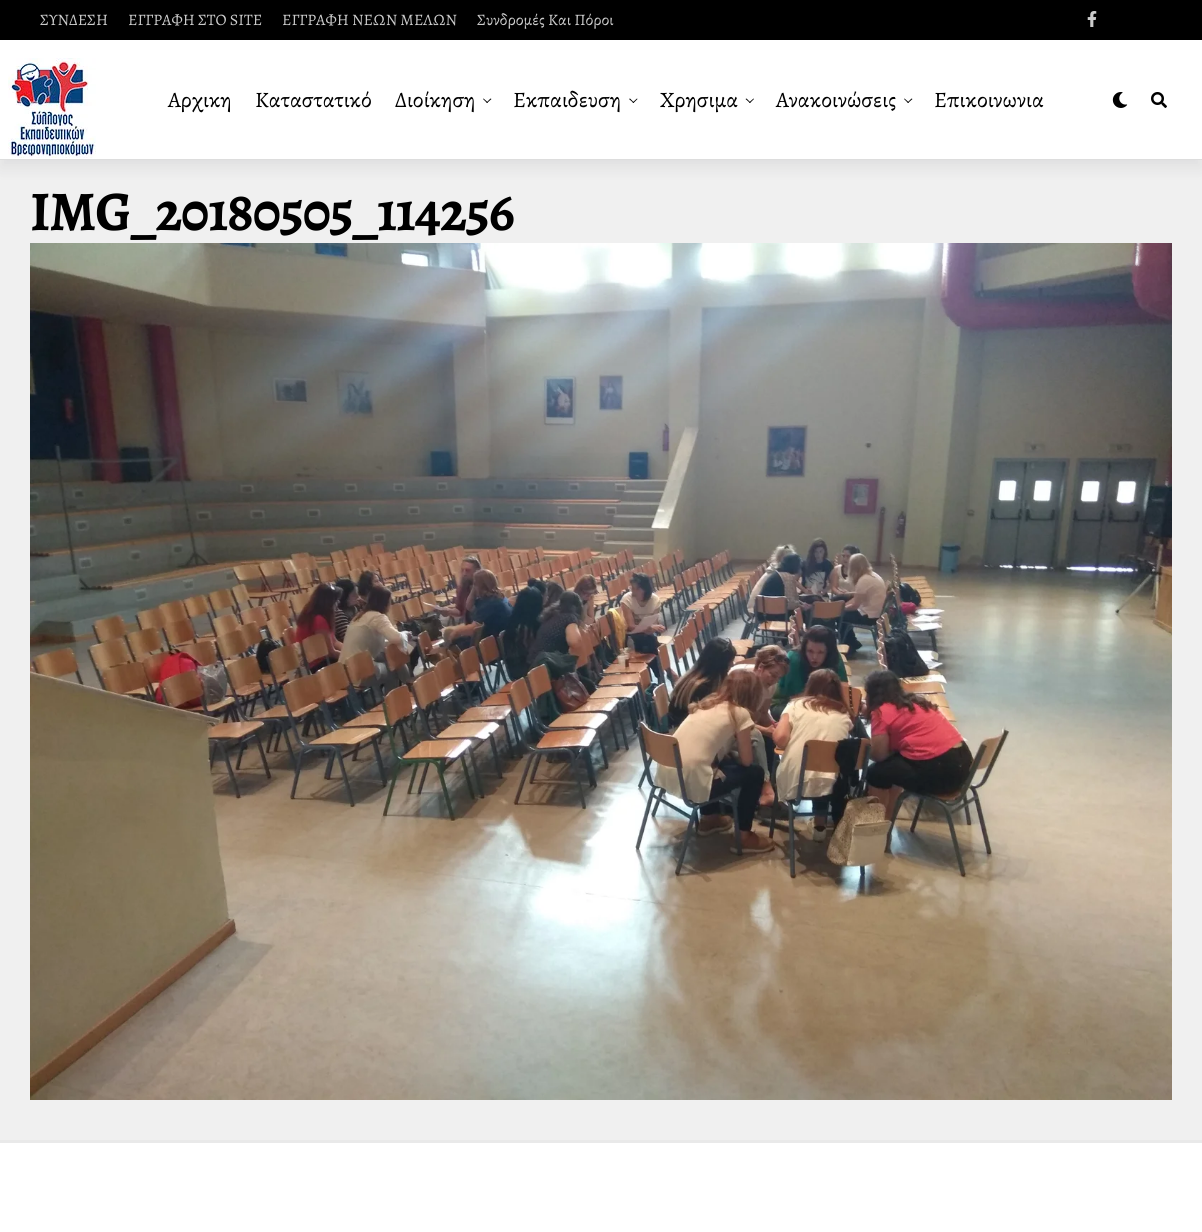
import math
import cairocffi as cairo

surface = cairo.ImageSurface(cairo.FORMAT_RGB24, 1202, 1232)
ctx = cairo.Context(surface)
options = cairo.FontOptions()
options.set_hint_metrics(cairo.HINT_METRICS_OFF)
options.set_hint_style(cairo.HINT_STYLE_NONE)
ctx.set_font_options(options)
ctx.set_miter_limit(4)


def rgb(r, g, b):
    ctx.set_source_rgb(r / 255, g / 255, b / 255)


def face(family, size, italic, bold):
    ctx.select_font_face(family, cairo.FONT_SLANT_ITALIC if italic else cairo.FONT_SLANT_NORMAL, cairo.FONT_WEIGHT_BOLD if bold else cairo.FONT_WEIGHT_NORMAL)
    ctx.set_font_size(size)


def label(x, y, s):
    ctx.move_to(x, y)
    ctx.show_text(s)


def tracked(x, y, s, letter, word):
    ctx.move_to(x, y)
    for ch in s:
        ctx.show_text(ch)
        ctx.rel_move_to(letter + word * (ch == ' '), 0)


def rect(x, y, w, h):
    ctx.rectangle(x, y, w, h)
    ctx.fill()


def rrect(x, y, w, h, r):
    ctx.new_sub_path()
    for i, (u, v) in enumerate([(x + w - r, y + h - r), (x + r, y + h - r), (x + r, y + r), (x + w - r, y + r)]):
        ctx.arc(u, v, r, i * math.pi / 2, (i + 1) * math.pi / 2)
    ctx.close_path()


def soft_shadow(x, y, w, h, r, blur, alpha):
    ctx.push_group_with_content(cairo.CONTENT_ALPHA)
    ctx.set_operator(cairo.OPERATOR_SOURCE)
    for i in range(15, -16, -2):
        e = blur * i / 6
        if min(w, h) + 2 * e > 0:
            ctx.set_source_rgba(0, 0, 0, alpha * math.erfc((i - 1) / 8.5) / 2)
            rrect(x - e, y - e, w + 2 * e, h + 2 * e, max(0, min(r + e + blur * .6, min(w, h) / 2 + e)))
            ctx.fill()
    ctx.mask(ctx.pop_group())


def image(path, x, y, w, h):
    ctx.save()
    ctx.set_source_surface(cairo.ImageSurface.create_from_png(path), x, y)
    ctx.rectangle(x, y, w, h)
    ctx.fill()
    ctx.restore()


rgb(240, 240, 240)
ctx.paint()
rgb(0, 0, 0)
rect(0, 0, 1202, 40)
face('Alegreya', 16, 0, 0)
rgb(204, 204, 204)
label(40, 25, 'ΣΥΝΔΕΣΗ')
label(128, 25, 'ΕΓΓΡΑΦΗ ΣΤΟ SITE')
label(282, 25, 'ΕΓΓΡΑΦΗ ΝΕΩΝ ΜΕΛΩΝ')
label(477, 25, 'Συνδρομές Και Πόροι')
image('image0.png', 1087, 11, 10, 16)
rgb(21, 21, 30)
soft_shadow(0, 48, 1202, 120, 0, 8, 0.08)
rgb(255, 255, 255)
rect(0, 40, 1202, 119)
rgb(221, 221, 221)
rect(0, 159, 1202, 1)
image('image1.png', 8, 58, 88, 100)
face('Alegreya', 22, 0, 0)
rgb(0, 0, 0)
label(168, 107, 'Αρχικη')
label(255, 107, 'Καταστατικό')
label(395, 107, 'Διοίκηση')
ctx.new_path()
ctx.move_to(490.5, 98.5)
ctx.line_to(491.5, 99)
ctx.line_to(487, 103)
ctx.line_to(486.5, 102.5)
ctx.close_path()
ctx.fill()
ctx.new_path()
ctx.move_to(483.5, 98.5)
ctx.line_to(488, 102.5)
ctx.line_to(487, 103)
ctx.line_to(483, 99)
ctx.close_path()
ctx.fill()
label(513, 107, 'Εκπαιδευση')
ctx.new_path()
ctx.move_to(637, 98.5)
ctx.line_to(637.5, 99)
ctx.line_to(633.5, 103)
ctx.line_to(632.5, 102.5)
ctx.close_path()
ctx.fill()
ctx.new_path()
ctx.move_to(630, 98.5)
ctx.line_to(634, 102.5)
ctx.line_to(633.5, 103)
ctx.line_to(629, 99)
ctx.close_path()
ctx.fill()
label(660, 107, 'Χρησιμα')
ctx.new_path()
ctx.move_to(753.5, 98.5)
ctx.line_to(754, 99)
ctx.line_to(750, 103)
ctx.line_to(749, 102.5)
ctx.close_path()
ctx.fill()
ctx.new_path()
ctx.move_to(746.5, 98.5)
ctx.line_to(750.5, 102.5)
ctx.line_to(750, 103)
ctx.line_to(745.5, 99)
ctx.close_path()
ctx.fill()
label(776, 107, 'Ανακοινώσεις')
ctx.new_path()
ctx.move_to(911.5, 98.5)
ctx.line_to(912.5, 99)
ctx.line_to(908, 103)
ctx.line_to(907.5, 102.5)
ctx.close_path()
ctx.fill()
ctx.new_path()
ctx.move_to(904.5, 98.5)
ctx.line_to(909, 102.5)
ctx.line_to(908, 103)
ctx.line_to(904, 99)
ctx.close_path()
ctx.fill()
label(934, 107, 'Επικοινωνια')
image('image2.png', 1112, 92, 16, 16)
image('image3.png', 1151, 92, 16, 16)
face('Alegreya', 56, 0, 1)
tracked(30, 230, 'IMG_20180505_114256', -1.1, 0)
image('image4.png', 30, 243, 1142, 857)
rgb(255, 255, 255)
rect(0, 1143, 1202, 89)
rgb(233, 233, 233)
rect(0, 1140, 1202, 3)
surface.write_to_png('render.png')
